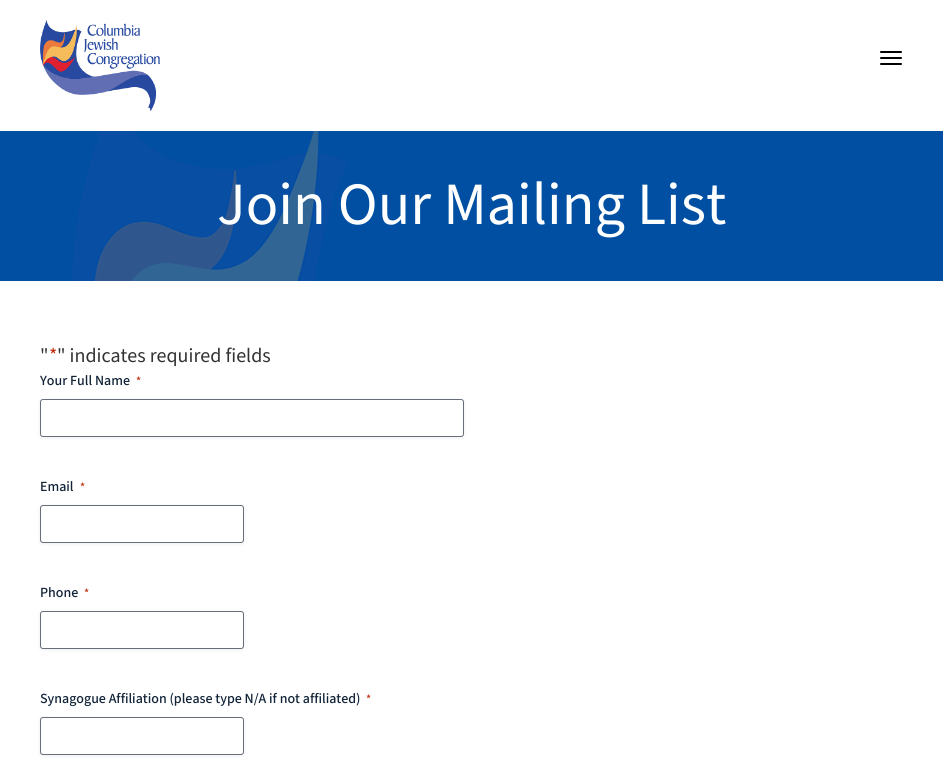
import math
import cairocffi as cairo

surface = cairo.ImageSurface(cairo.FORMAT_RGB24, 943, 780)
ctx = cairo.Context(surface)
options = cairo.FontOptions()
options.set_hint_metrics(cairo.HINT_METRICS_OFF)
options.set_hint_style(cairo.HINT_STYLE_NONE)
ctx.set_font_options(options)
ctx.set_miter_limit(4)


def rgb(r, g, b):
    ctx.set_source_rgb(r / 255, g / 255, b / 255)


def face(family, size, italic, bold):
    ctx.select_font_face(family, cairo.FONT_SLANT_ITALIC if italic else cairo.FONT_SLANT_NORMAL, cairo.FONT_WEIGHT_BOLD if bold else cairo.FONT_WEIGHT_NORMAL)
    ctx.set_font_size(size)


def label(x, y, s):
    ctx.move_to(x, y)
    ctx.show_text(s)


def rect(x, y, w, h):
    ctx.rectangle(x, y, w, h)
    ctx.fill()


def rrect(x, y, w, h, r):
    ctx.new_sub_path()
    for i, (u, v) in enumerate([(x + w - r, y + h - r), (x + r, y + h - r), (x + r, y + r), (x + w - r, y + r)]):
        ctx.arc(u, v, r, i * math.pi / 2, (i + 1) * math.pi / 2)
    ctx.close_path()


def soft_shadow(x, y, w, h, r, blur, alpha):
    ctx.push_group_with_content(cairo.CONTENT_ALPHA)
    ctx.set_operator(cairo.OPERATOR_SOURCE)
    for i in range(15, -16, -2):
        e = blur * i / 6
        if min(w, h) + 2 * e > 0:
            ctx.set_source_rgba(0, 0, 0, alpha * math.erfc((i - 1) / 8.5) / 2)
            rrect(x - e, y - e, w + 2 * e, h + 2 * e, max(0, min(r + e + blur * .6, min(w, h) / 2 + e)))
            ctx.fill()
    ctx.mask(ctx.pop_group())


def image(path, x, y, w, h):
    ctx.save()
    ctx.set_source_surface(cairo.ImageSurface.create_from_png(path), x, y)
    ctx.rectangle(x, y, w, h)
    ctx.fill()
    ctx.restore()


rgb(0, 79, 162)
ctx.paint()
rgb(255, 255, 255)
rect(0, 0, 943, 131)
image('image0.png', 40, 20, 120, 91)
rgb(0, 0, 0)
rrect(880, 51, 22, 2, 1)
ctx.fill()
rrect(880, 57, 22, 2, 1)
ctx.fill()
rrect(880, 63, 22, 2, 1)
ctx.fill()
image('image1.png', 72, 131, 276, 150)
face('Source Sans 3', 60, 0, 0)
rgb(255, 255, 255)
label(217, 224, 'Join Our Mailing List')
rect(0, 281, 943, 499)
face('Source Sans 3', 20, 0, 0)
rgb(51, 51, 51)
label(40, 362, '"')
rgb(192, 43, 10)
label(49, 362, '*')
rgb(51, 51, 51)
label(57, 362, '" indicates required fields')
face('Source Sans 3 Medium', 14, 0, 0)
rgb(17, 35, 55)
label(40, 385, 'Your Full Name')
face('Source Sans 3 Medium', 12, 0, 0)
rgb(192, 43, 10)
label(136, 385, '*')
rgb(18, 25, 97)
soft_shadow(40, 400, 424, 38, 3, 2, 0.08)
rgb(255, 255, 255)
rrect(40.5, 399.5, 423, 37, 2.5)
ctx.fill_preserve()
rgb(104, 110, 119)
ctx.set_line_width(1)
ctx.stroke()
face('Source Sans 3 Medium', 14, 0, 0)
rgb(17, 35, 55)
label(40, 491, 'Email')
face('Source Sans 3 Medium', 12, 0, 0)
rgb(192, 43, 10)
label(80, 491, '*')
rgb(18, 25, 97)
soft_shadow(40, 506, 204, 38, 3, 2, 0.08)
rgb(255, 255, 255)
rrect(40.5, 505.5, 203, 37, 2.5)
ctx.fill_preserve()
rgb(104, 110, 119)
ctx.stroke()
face('Source Sans 3 Medium', 14, 0, 0)
rgb(17, 35, 55)
label(40, 597, 'Phone')
face('Source Sans 3 Medium', 12, 0, 0)
rgb(192, 43, 10)
label(84, 597, '*')
rgb(18, 25, 97)
soft_shadow(40, 612, 204, 38, 3, 2, 0.08)
rgb(255, 255, 255)
rrect(40.5, 611.5, 203, 37, 2.5)
ctx.fill_preserve()
rgb(104, 110, 119)
ctx.stroke()
face('Source Sans 3 Medium', 14, 0, 0)
rgb(17, 35, 55)
label(40, 703, 'Synagogue Affiliation (please type N/A if not affiliated)')
face('Source Sans 3 Medium', 12, 0, 0)
rgb(192, 43, 10)
label(366, 703, '*')
rgb(18, 25, 97)
soft_shadow(40, 718, 204, 38, 3, 2, 0.08)
rgb(255, 255, 255)
rrect(40.5, 717.5, 203, 37, 2.5)
ctx.fill_preserve()
rgb(104, 110, 119)
ctx.stroke()
surface.write_to_png('render.png')
